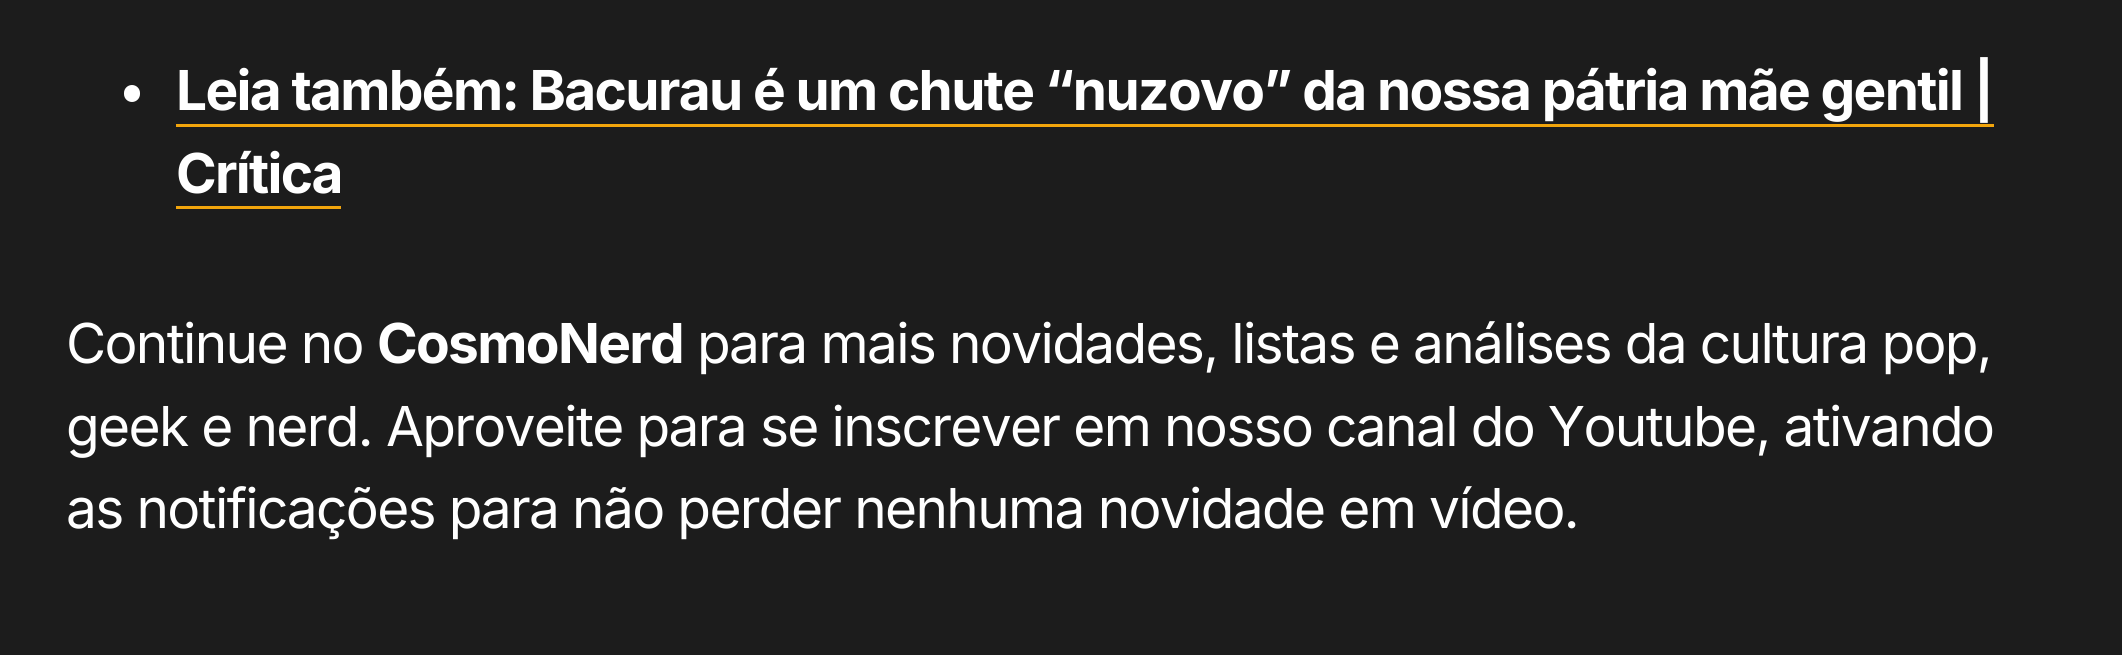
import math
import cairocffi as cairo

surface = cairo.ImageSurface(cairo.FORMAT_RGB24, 2122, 655)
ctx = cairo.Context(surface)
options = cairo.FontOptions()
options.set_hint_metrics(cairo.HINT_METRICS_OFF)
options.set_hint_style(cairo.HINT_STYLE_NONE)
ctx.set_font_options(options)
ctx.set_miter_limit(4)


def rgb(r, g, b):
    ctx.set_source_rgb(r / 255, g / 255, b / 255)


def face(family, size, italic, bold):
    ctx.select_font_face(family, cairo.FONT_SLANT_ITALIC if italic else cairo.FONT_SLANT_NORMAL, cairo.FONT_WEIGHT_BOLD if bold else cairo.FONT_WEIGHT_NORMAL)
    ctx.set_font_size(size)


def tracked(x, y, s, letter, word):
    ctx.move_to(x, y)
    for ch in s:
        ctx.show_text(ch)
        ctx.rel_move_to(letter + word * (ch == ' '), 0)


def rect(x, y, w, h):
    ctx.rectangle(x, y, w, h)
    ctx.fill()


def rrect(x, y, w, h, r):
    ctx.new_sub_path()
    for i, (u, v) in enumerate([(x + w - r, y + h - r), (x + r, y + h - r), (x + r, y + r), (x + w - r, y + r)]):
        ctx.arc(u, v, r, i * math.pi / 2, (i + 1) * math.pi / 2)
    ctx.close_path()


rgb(28, 28, 28)
ctx.paint()
rgb(255, 255, 255)
rrect(124, 85, 16, 17, 8)
ctx.fill()
face('Inter', 55, 0, 1)
tracked(176, 110, 'Leia também: Bacurau é um chute “nuzovo” da nossa pátria mãe gentil |', -1.65, 0)
rgb(242, 165, 12)
rect(176, 124, 1818, 3)
rgb(255, 255, 255)
tracked(176, 193, 'Crítica', -1.65, 0)
rgb(242, 165, 12)
rect(176, 206, 165, 3)
face('Inter', 55, 0, 0)
rgb(255, 255, 255)
tracked(66, 363, 'Continue no', -1.65, 0)
face('Inter', 55, 0, 1)
tracked(377, 363, 'CosmoNerd', -1.65, 0)
face('Inter', 55, 0, 0)
tracked(697, 363, 'para mais novidades, listas e análises da cultura pop,', -1.65, 0)
tracked(66, 446, 'geek e nerd. Aproveite para se inscrever em nosso canal do Youtube, ativando', -1.65, 0)
tracked(66, 528, 'as notificações para não perder nenhuma novidade em vídeo.', -1.65, 0)
surface.write_to_png('render.png')
